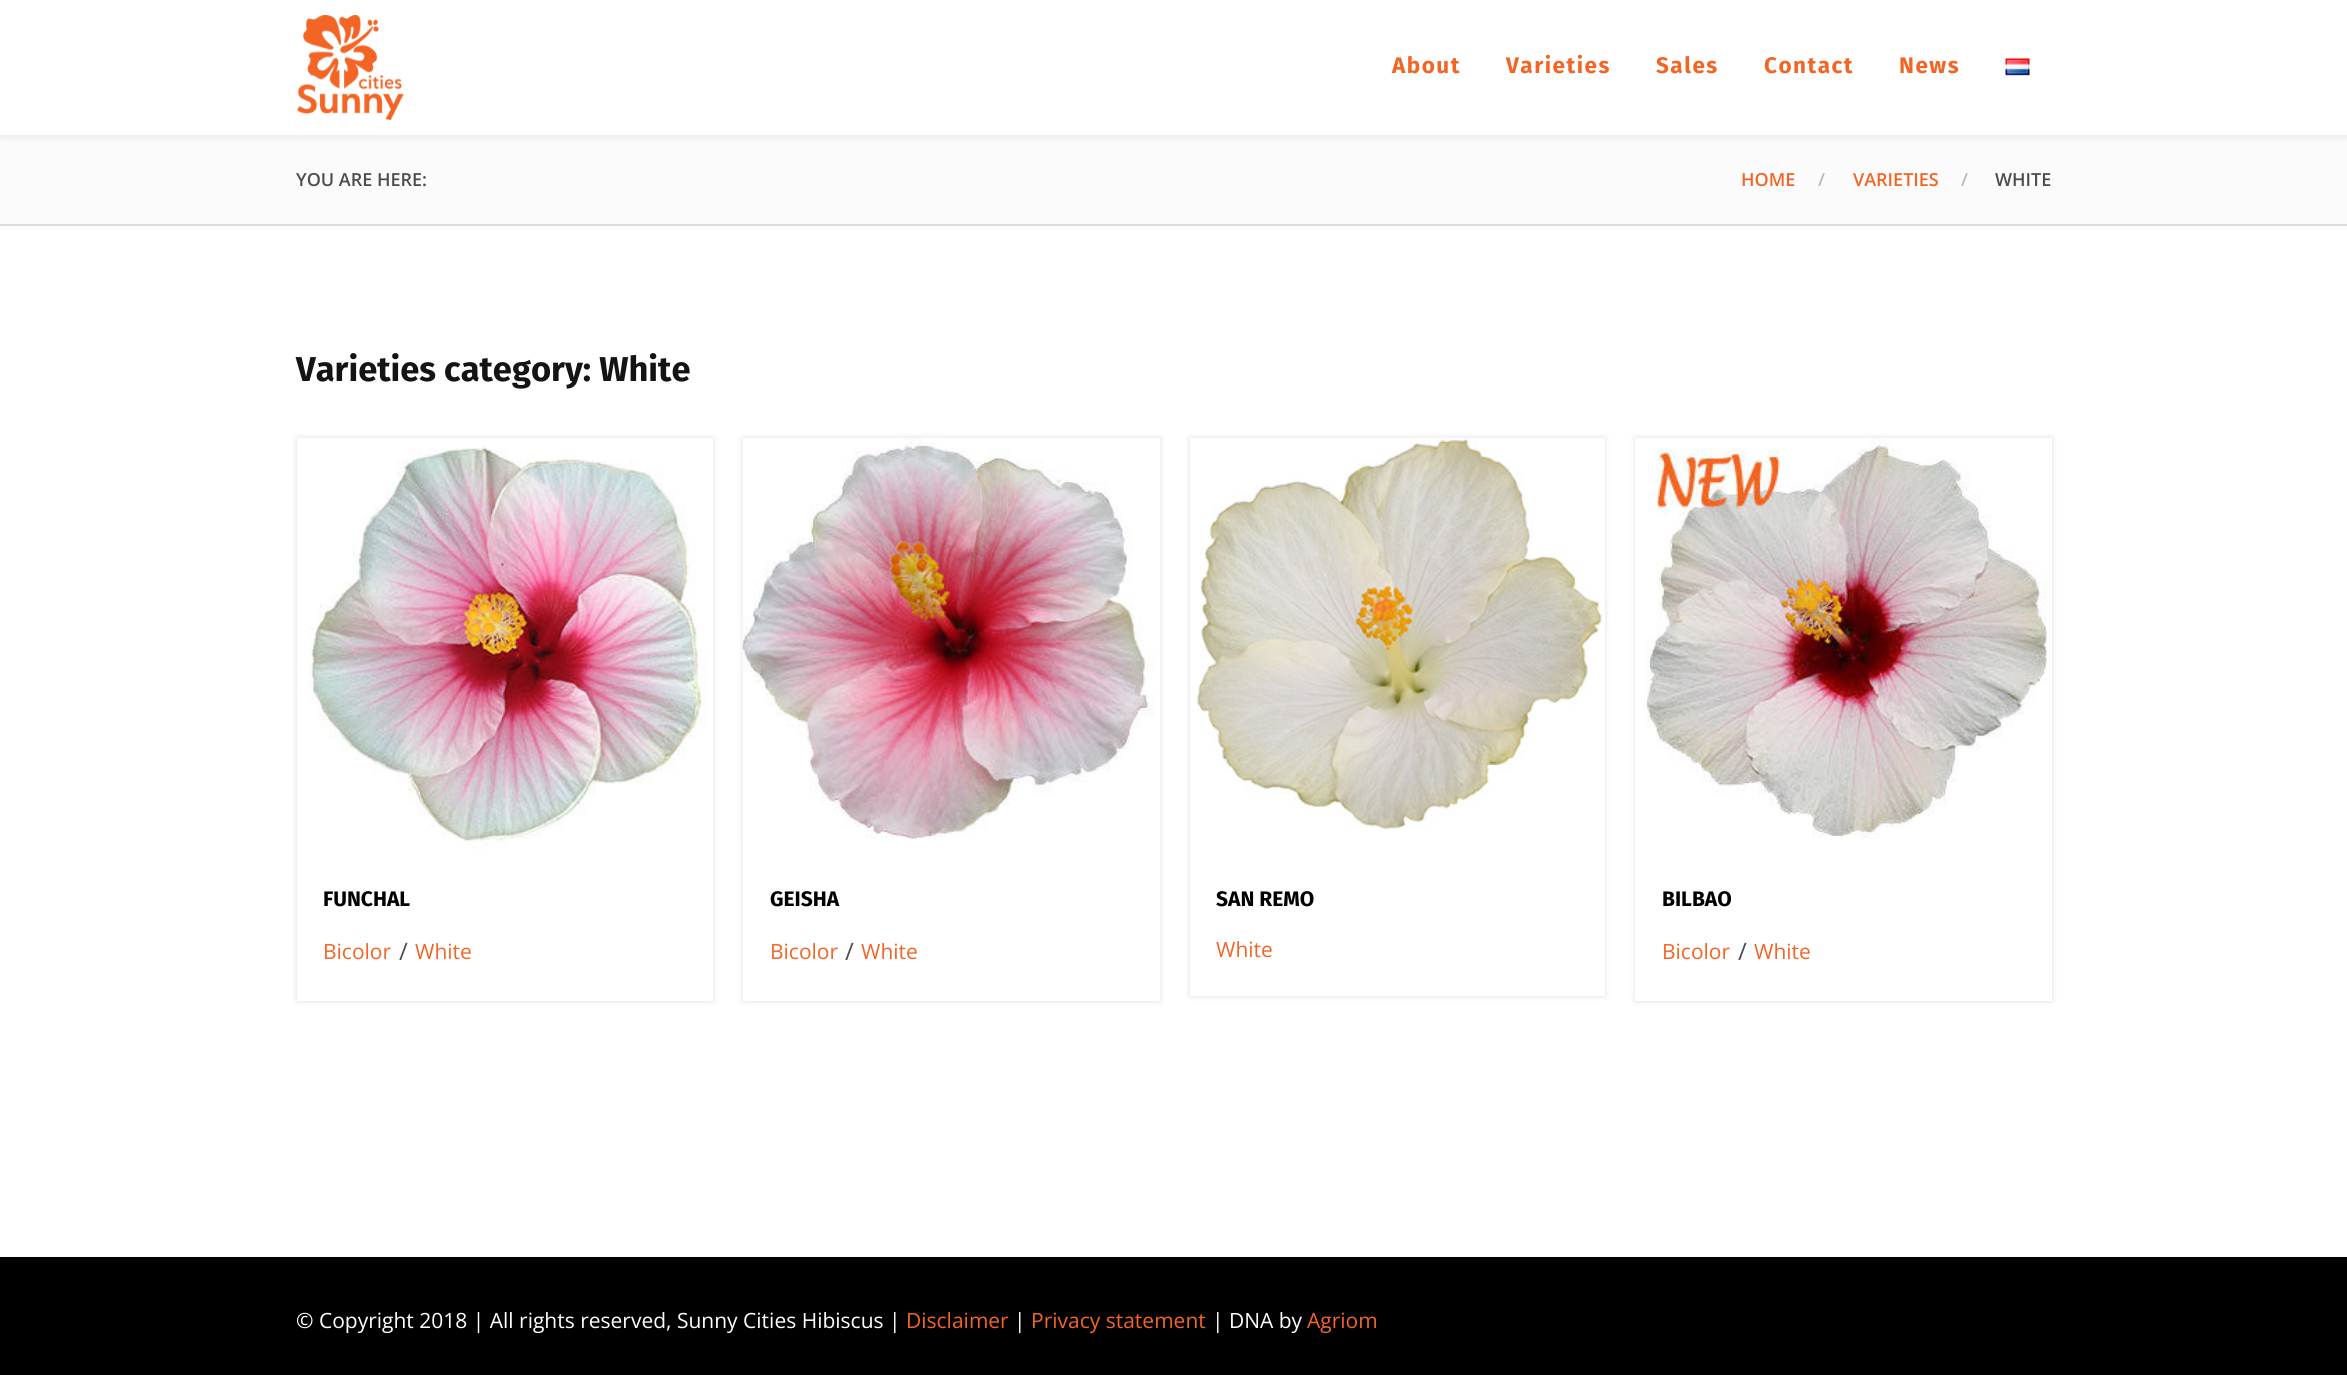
import math
import cairocffi as cairo

surface = cairo.ImageSurface(cairo.FORMAT_RGB24, 2347, 1375)
ctx = cairo.Context(surface)
options = cairo.FontOptions()
options.set_hint_metrics(cairo.HINT_METRICS_OFF)
options.set_hint_style(cairo.HINT_STYLE_NONE)
ctx.set_font_options(options)
ctx.set_miter_limit(4)


def rgb(r, g, b):
    ctx.set_source_rgb(r / 255, g / 255, b / 255)


def face(family, size, italic, bold):
    ctx.select_font_face(family, cairo.FONT_SLANT_ITALIC if italic else cairo.FONT_SLANT_NORMAL, cairo.FONT_WEIGHT_BOLD if bold else cairo.FONT_WEIGHT_NORMAL)
    ctx.set_font_size(size)


def label(x, y, s):
    ctx.move_to(x, y)
    ctx.show_text(s)


def tracked(x, y, s, letter, word):
    ctx.move_to(x, y)
    for ch in s:
        ctx.show_text(ch)
        ctx.rel_move_to(letter + word * (ch == ' '), 0)


def rect(x, y, w, h):
    ctx.rectangle(x, y, w, h)
    ctx.fill()


def rrect(x, y, w, h, r):
    ctx.new_sub_path()
    for i, (u, v) in enumerate([(x + w - r, y + h - r), (x + r, y + h - r), (x + r, y + r), (x + w - r, y + r)]):
        ctx.arc(u, v, r, i * math.pi / 2, (i + 1) * math.pi / 2)
    ctx.close_path()


def soft_shadow(x, y, w, h, r, blur, alpha):
    ctx.push_group_with_content(cairo.CONTENT_ALPHA)
    ctx.set_operator(cairo.OPERATOR_SOURCE)
    for i in range(15, -16, -2):
        e = blur * i / 6
        if min(w, h) + 2 * e > 0:
            ctx.set_source_rgba(0, 0, 0, alpha * math.erfc((i - 1) / 8.5) / 2)
            rrect(x - e, y - e, w + 2 * e, h + 2 * e, max(0, min(r + e + blur * .6, min(w, h) / 2 + e)))
            ctx.fill()
    ctx.mask(ctx.pop_group())


def image(path, x, y, w, h):
    ctx.save()
    ctx.set_source_surface(cairo.ImageSurface.create_from_png(path), x, y)
    ctx.rectangle(x, y, w, h)
    ctx.fill()
    ctx.restore()


rgb(255, 255, 255)
ctx.paint()
rgb(251, 251, 251)
rect(0, 135, 2347, 89)
ctx.save()
ctx.rectangle(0, 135, 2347, 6)
ctx.clip()
rgb(0, 0, 0)
soft_shadow(0, 0, 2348, 135, 0, 7.5, 0.1)
ctx.restore()
image('image0.png', 297, 15, 107, 105)
face('Fira Sans', 22.5, 0, 1)
rgb(243, 101, 37)
tracked(1392, 73, 'About', 1.5, 0)
tracked(1506, 73, 'Varieties', 1.5, 0)
tracked(1656, 73, 'Sales', 1.5, 0)
tracked(1764, 73, 'Contact', 1.5, 0)
tracked(1899, 73, 'News', 1.5, 0)
image('image1.png', 2005, 58, 25, 18)
rgb(219, 219, 219)
rect(0, 224, 2347, 2)
face('Open Sans SemiBold', 18, 0, 0)
rgb(77, 77, 77)
label(296, 186, 'YOU ARE HERE:')
rgb(243, 101, 37)
label(1741, 186, 'HOME')
rgb(185, 185, 185)
label(1818, 186, '/')
rgb(243, 101, 37)
label(1853, 186, 'VARIETIES')
rgb(185, 185, 185)
label(1961, 186, '/')
rgb(77, 77, 77)
label(1995, 186, 'WHITE')
face('Fira Sans', 34.5, 0, 1)
rgb(20, 20, 20)
label(296, 381, 'Varieties category: White')
rgb(0, 0, 0)
soft_shadow(297, 438, 416, 563, 0, 3, 0.13)
rgb(255, 255, 255)
rect(297, 438, 416, 563)
image('image2.png', 308, 446, 399, 404)
face('Fira Sans', 21, 0, 1)
rgb(0, 0, 0)
label(323, 906, 'FUNCHAL')
face('Open Sans', 21, 0, 0)
rgb(243, 101, 37)
label(323, 959, 'Bicolor')
face('Open Sans', 24, 0, 0)
rgb(77, 77, 77)
label(399, 960, '/')
face('Open Sans', 21, 0, 0)
rgb(243, 101, 37)
label(415, 959, 'White')
rgb(0, 0, 0)
soft_shadow(743, 438, 417, 563, 0, 3, 0.13)
rgb(255, 255, 255)
rect(743, 438, 417, 563)
image('image3.png', 742, 438, 412, 401)
face('Fira Sans', 21, 0, 1)
rgb(0, 0, 0)
label(770, 906, 'GEISHA')
face('Open Sans', 21, 0, 0)
rgb(243, 101, 37)
label(770, 959, 'Bicolor')
face('Open Sans', 24, 0, 0)
rgb(77, 77, 77)
label(845, 960, '/')
face('Open Sans', 21, 0, 0)
rgb(243, 101, 37)
label(861, 959, 'White')
ctx.save()
ctx.set_fill_rule(cairo.FILL_RULE_EVEN_ODD)
ctx.new_path()
ctx.move_to(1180, 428)
ctx.line_to(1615, 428)
ctx.line_to(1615, 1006)
ctx.line_to(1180, 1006)
ctx.close_path()
ctx.move_to(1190, 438)
ctx.line_to(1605, 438)
ctx.line_to(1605, 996)
ctx.line_to(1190, 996)
ctx.close_path()
ctx.clip()
rgb(0, 0, 0)
soft_shadow(1190, 438, 415, 558, 0, 3, 0.13)
ctx.restore()
image('image4.png', 1197, 438, 407, 393)
face('Fira Sans', 21, 0, 1)
rgb(0, 0, 0)
label(1216, 906, 'SAN REMO')
face('Open Sans', 21, 0, 0)
rgb(243, 101, 37)
label(1216, 957, 'White')
rgb(0, 0, 0)
soft_shadow(1635, 438, 417, 563, 0, 3, 0.13)
rgb(255, 255, 255)
rect(1635, 438, 417, 563)
image('image5.png', 1646, 438, 401, 401)
face('Fira Sans', 21, 0, 1)
rgb(0, 0, 0)
label(1662, 906, 'BILBAO')
face('Open Sans', 21, 0, 0)
rgb(243, 101, 37)
label(1662, 959, 'Bicolor')
face('Open Sans', 24, 0, 0)
rgb(77, 77, 77)
label(1738, 960, '/')
face('Open Sans', 21, 0, 0)
rgb(243, 101, 37)
label(1754, 959, 'White')
rgb(0, 0, 0)
rect(0, 1257, 2347, 118)
rgb(255, 255, 255)
label(296, 1328, '© Copyright 2018 | All rights reserved, Sunny Cities Hibiscus |')
rgb(243, 101, 37)
label(906, 1328, 'Disclaimer')
rgb(255, 255, 255)
label(1014, 1328, '|')
rgb(243, 101, 37)
label(1031, 1328, 'Privacy statement')
rgb(255, 255, 255)
label(1212, 1328, '| DNA by')
rgb(243, 101, 37)
label(1307, 1328, 'Agriom')
surface.write_to_png('render.png')
